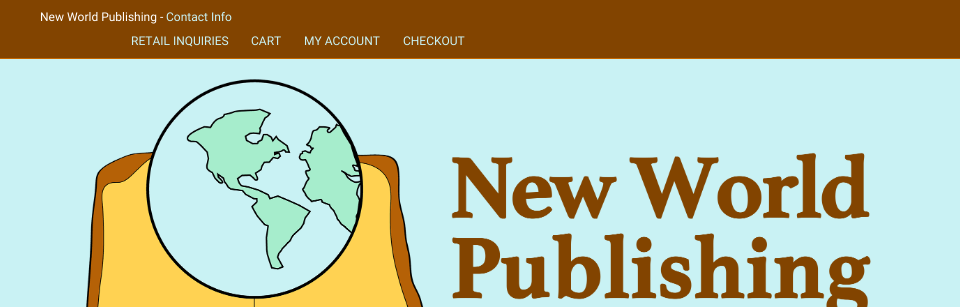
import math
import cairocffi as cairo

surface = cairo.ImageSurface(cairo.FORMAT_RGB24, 960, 307)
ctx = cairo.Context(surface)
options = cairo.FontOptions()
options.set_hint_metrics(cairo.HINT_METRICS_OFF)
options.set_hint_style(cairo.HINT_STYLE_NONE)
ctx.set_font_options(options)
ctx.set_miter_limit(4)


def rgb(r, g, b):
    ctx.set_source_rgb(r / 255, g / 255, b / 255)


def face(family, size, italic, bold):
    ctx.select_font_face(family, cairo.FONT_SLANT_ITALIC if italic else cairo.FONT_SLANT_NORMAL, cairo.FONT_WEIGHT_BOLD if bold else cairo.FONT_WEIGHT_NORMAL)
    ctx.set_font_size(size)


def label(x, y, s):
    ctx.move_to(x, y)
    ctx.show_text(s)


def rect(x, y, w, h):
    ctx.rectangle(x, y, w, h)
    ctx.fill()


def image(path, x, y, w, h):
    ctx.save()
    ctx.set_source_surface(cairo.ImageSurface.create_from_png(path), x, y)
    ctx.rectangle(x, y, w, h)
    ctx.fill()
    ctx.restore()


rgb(130, 68, 0)
ctx.paint()
rgb(196, 103, 0)
rect(0, 58, 960, 1)
face('Roboto', 12, 0, 0)
rgb(255, 255, 255)
label(40, 21, 'New World Publishing -')
rgb(201, 242, 244)
label(166, 21, 'Contact Info')
label(131, 45, 'RETAIL INQUIRIES')
label(251, 45, 'CART')
label(304, 45, 'MY ACCOUNT')
label(403, 45, 'CHECKOUT')
rect(0, 59, 960, 248)
image('image0.png', 86, 79, 785, 228)
surface.write_to_png('render.png')
